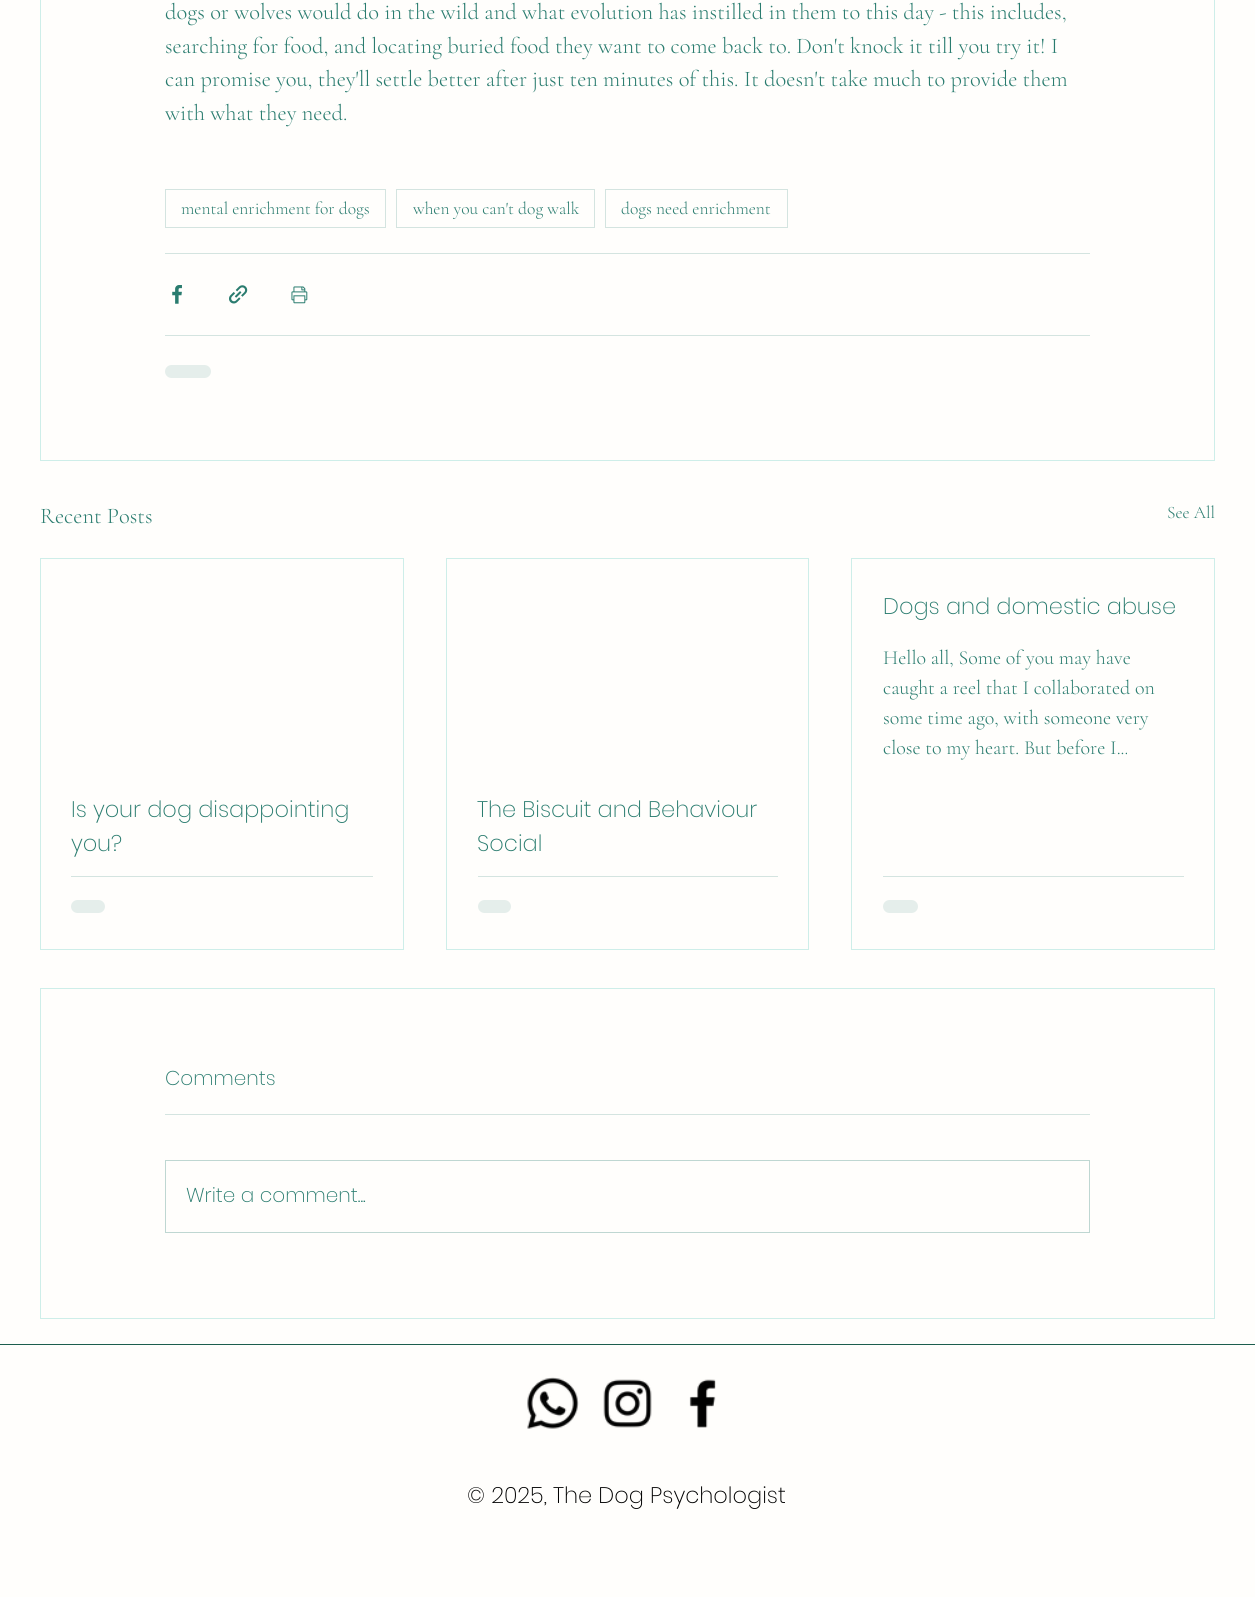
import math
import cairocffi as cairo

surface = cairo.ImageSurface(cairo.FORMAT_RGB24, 1255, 1597)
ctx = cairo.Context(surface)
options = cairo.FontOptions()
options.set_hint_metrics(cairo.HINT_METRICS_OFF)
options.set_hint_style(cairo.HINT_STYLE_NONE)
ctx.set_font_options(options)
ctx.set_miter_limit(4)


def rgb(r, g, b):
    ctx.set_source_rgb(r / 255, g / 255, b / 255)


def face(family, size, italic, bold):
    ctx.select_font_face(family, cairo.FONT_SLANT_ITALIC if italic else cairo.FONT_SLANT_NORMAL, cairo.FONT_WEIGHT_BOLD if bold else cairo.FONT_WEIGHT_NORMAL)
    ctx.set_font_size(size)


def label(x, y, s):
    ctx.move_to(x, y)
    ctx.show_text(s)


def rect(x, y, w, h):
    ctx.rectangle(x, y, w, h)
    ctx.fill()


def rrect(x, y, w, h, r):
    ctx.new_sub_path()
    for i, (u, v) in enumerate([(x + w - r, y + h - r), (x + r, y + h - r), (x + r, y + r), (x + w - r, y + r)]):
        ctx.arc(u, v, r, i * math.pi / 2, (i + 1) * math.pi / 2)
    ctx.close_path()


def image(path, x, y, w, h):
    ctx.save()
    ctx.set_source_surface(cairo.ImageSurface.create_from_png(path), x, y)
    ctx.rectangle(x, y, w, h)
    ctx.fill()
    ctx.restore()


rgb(255, 254, 252)
ctx.paint()
ctx.rectangle(40.5, -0.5, 1174, 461)
rgb(206, 238, 233)
ctx.set_line_width(1)
ctx.stroke()
face('Cormorant Garamond Light', 22.5, 0, 0)
rgb(42, 124, 111)
label(165, 19, 'dogs or wolves would do in the wild and what evolution has instilled in them to this day - this includes,')
label(165, 53, 'searching for food, and locating buried food they want to come back to. Don\'t knock it till you try it! I')
label(165, 86, 'can promise you, they\'ll settle better after just ten minutes of this. It doesn\'t take much to provide them')
label(165, 120, 'with what they need.')
ctx.rectangle(165.5, 189.5, 220, 38)
rgb(212, 228, 224)
ctx.stroke()
face('Cormorant Garamond Light', 17.5, 0, 0)
rgb(42, 124, 111)
label(181, 214, 'mental enrichment for dogs')
ctx.rectangle(396.5, 189.5, 198, 38)
rgb(212, 228, 224)
ctx.stroke()
rgb(42, 124, 111)
label(413, 214, 'when you can\'t dog walk')
ctx.rectangle(605.5, 189.5, 182, 38)
rgb(212, 228, 224)
ctx.stroke()
rgb(42, 124, 111)
label(621, 214, 'dogs need enrichment')
rgb(212, 228, 224)
rect(165, 253, 925, 1)
image('image0.png', 172, 285, 10, 19)
image('image1.png', 229, 285, 19, 19)
image('image2.png', 291, 286, 17, 18)
rect(165, 335, 925, 1)
rgb(229, 238, 235)
rrect(165, 365, 46, 13, 6.5)
ctx.fill()
face('Cormorant Garamond Light', 22.5, 0, 0)
rgb(42, 124, 111)
label(40, 523, 'Recent Posts')
face('Cormorant Garamond Light', 17.5, 0, 0)
label(1167, 518, 'See All')
ctx.rectangle(851.5, 558.5, 363, 391)
rgb(206, 238, 233)
ctx.stroke()
face('Poppins ExtraLight', 22.5, 0, 0)
rgb(42, 124, 111)
label(883, 614, 'Dogs and domestic abuse')
face('Cormorant Garamond Light', 20, 0, 0)
label(883, 664, 'Hello all, Some of you may have')
label(883, 694, 'caught a reel that I collaborated on')
label(883, 724, 'some time ago, with someone very')
label(883, 754, 'close to my heart. But before I...')
rgb(212, 228, 224)
rect(883, 876, 301, 1)
rgb(229, 238, 235)
rrect(883, 900, 35, 13, 6.5)
ctx.fill()
ctx.rectangle(40.5, 558.5, 363, 391)
rgb(206, 238, 233)
ctx.stroke()
face('Poppins ExtraLight', 22.5, 0, 0)
rgb(42, 124, 111)
label(71, 817, 'Is your dog disappointing')
label(71, 851, 'you?')
rgb(212, 228, 224)
rect(71, 876, 302, 1)
rgb(229, 238, 235)
rrect(71, 900, 34, 13, 6.5)
ctx.fill()
ctx.rectangle(446.5, 558.5, 362, 391)
rgb(206, 238, 233)
ctx.stroke()
rgb(42, 124, 111)
label(477, 817, 'The Biscuit and Behaviour')
label(477, 851, 'Social')
rgb(212, 228, 224)
rect(478, 876, 300, 1)
rgb(229, 238, 235)
rrect(478, 900, 33, 13, 6.5)
ctx.fill()
ctx.rectangle(40.5, 988.5, 1174, 330)
rgb(206, 238, 233)
ctx.stroke()
face('Poppins ExtraLight', 20, 0, 0)
rgb(42, 124, 111)
label(165, 1085, 'Comments')
rgb(212, 228, 224)
rect(165, 1114, 925, 1)
ctx.rectangle(165.5, 1160.5, 924, 72)
rgb(191, 215, 210)
ctx.stroke()
rgb(42, 124, 111)
label(186, 1202, 'Write a comment...')
rgb(28, 94, 78)
rect(0, 1344, 1255, 1)
image('image3.png', 527, 1377, 52, 52)
image('image4.png', 603, 1379, 49, 49)
image('image5.png', 689, 1379, 27, 49)
face('Poppins ExtraLight', 22.5, 0, 0)
rgb(0, 0, 0)
label(467, 1503, '© 2025, The Dog Psychologist')
surface.write_to_png('render.png')
